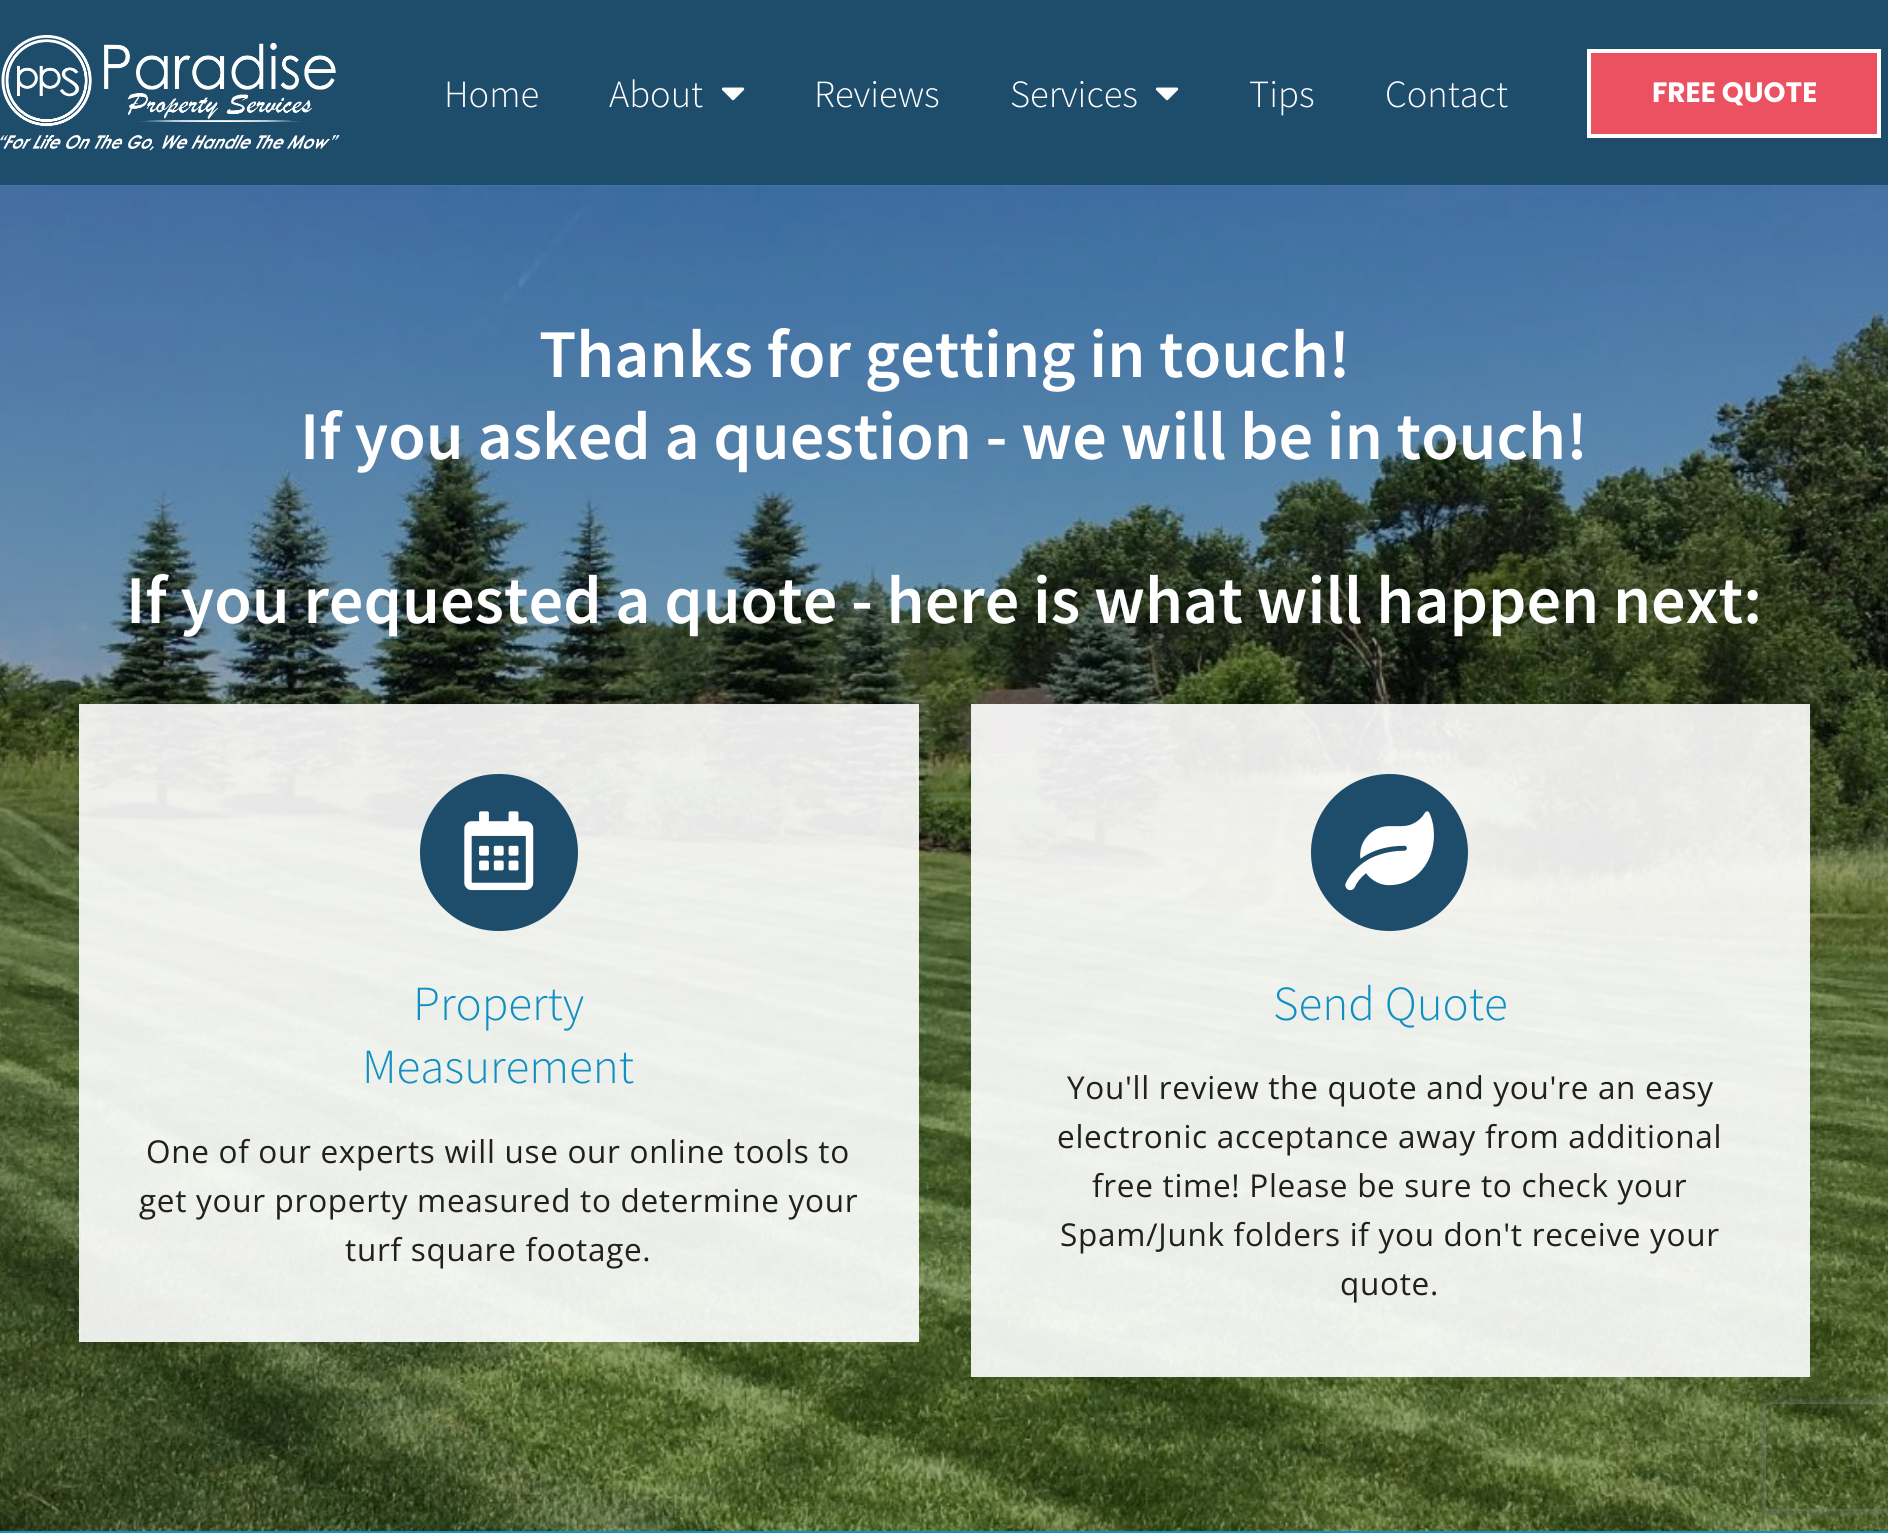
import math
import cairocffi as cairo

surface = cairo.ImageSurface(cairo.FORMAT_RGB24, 1888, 1533)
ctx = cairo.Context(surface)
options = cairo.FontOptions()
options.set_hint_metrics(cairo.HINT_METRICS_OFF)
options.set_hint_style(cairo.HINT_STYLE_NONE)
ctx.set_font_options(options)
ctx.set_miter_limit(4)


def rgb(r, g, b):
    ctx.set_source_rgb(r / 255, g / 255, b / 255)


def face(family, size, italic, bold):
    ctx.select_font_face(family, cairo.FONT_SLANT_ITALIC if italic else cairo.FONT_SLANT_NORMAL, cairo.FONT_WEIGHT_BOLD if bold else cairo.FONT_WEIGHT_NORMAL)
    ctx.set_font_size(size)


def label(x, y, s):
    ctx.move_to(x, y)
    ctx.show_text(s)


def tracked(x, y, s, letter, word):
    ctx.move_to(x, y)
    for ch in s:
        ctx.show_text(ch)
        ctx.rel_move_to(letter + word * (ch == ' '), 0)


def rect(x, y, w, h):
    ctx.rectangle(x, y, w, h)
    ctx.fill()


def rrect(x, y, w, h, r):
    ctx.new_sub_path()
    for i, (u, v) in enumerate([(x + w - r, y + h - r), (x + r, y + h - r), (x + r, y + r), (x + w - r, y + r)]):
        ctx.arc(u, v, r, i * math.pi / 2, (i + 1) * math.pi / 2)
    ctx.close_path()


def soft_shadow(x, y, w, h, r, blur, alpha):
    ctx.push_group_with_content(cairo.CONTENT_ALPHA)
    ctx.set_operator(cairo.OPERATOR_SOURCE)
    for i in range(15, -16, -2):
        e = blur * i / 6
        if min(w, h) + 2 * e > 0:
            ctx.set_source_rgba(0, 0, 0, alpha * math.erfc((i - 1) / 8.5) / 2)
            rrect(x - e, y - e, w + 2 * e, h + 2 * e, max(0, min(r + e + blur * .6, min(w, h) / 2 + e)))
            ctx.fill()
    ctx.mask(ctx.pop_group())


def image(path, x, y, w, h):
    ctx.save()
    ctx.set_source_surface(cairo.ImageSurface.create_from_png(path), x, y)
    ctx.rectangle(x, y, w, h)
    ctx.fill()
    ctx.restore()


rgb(30, 77, 107)
ctx.paint()
image('image0.png', 0, 35, 340, 116)
face('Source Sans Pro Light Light', 38.5, 0, 0)
rgb(255, 255, 255)
label(444, 107, 'Home')
label(609, 107, 'About')
image('image1.png', 721, 87, 24, 14)
label(814, 107, 'Reviews')
label(1010, 107, 'Services')
image('image1.png', 1155, 87, 24, 14)
label(1249, 107, 'Tips')
label(1385, 107, 'Contact')
rgb(235, 81, 96)
ctx.rectangle(1589, 51, 290, 85)
ctx.fill_preserve()
rgb(255, 255, 255)
ctx.set_line_width(4)
ctx.stroke()
face('Poppins', 28, 0, 1)
label(1652, 102, 'FREE QUOTE')
image('image2.png', 0, 185, 1888, 1346)
face('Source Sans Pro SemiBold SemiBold', 68.25, 0, 0)
label(539, 377, 'Thanks for getting in touch!')
label(300, 459, 'If you asked a question - we will be in touch!')
label(126, 623, 'If you requested a quote - here is what will happen next:')
ctx.set_source_rgba(1, 1, 1, 0.9)
rect(79, 704, 840, 638)
rgb(30, 77, 107)
rrect(420, 774, 158, 157, 78.5)
ctx.fill()
image('image3.png', 464, 811, 70, 80)
face('Source Sans Pro Light Light', 49, 0, 0)
rgb(16, 143, 194)
label(413, 1020, 'Property')
label(362, 1083, 'Measurement')
face('Open Sans', 31.5, 0, 0)
rgb(32, 32, 32)
tracked(146, 1163, 'One of our experts will use our online tools to', 0.7, 0)
tracked(139, 1212, 'get your property measured to determine your', 0.7, 0)
tracked(345, 1261, 'turf square footage.', 0.7, 0)
ctx.set_source_rgba(1, 1, 1, 0.9)
rect(971, 704, 839, 673)
rgb(30, 77, 107)
ctx.new_path()
ctx.arc(1389.5, 852.5, 78.5, 0, 2 * math.pi)
ctx.fill()
image('image4.png', 1345, 811, 89, 80)
face('Source Sans Pro Light Light', 49, 0, 0)
rgb(16, 143, 194)
label(1273, 1020, 'Send Quote')
face('Open Sans', 31.5, 0, 0)
rgb(32, 32, 32)
tracked(1067, 1099, 'You\'ll review the quote and you\'re an easy', 0.7, 0)
tracked(1057, 1148, 'electronic acceptance away from additional', 0.7, 0)
tracked(1092, 1197, 'free time! Please be sure to check your', 0.7, 0)
tracked(1060, 1246, 'Spam/Junk folders if you don\'t receive your', 0.7, 0)
tracked(1340, 1295, 'quote.', 0.7, 0)
ctx.save()
ctx.set_fill_rule(cairo.FILL_RULE_EVEN_ODD)
ctx.new_path()
ctx.move_to(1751, 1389)
ctx.line_to(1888, 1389)
ctx.line_to(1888, 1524)
ctx.line_to(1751, 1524)
ctx.close_path()
ctx.move_to(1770, 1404)
ctx.line_to(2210, 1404)
ctx.curve_to(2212, 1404, 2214, 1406, 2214, 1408)
ctx.line_to(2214, 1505)
ctx.curve_to(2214, 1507, 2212, 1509, 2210, 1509)
ctx.line_to(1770, 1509)
ctx.curve_to(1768, 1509, 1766, 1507, 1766, 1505)
ctx.line_to(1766, 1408)
ctx.curve_to(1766, 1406, 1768, 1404, 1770, 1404)
ctx.close_path()
ctx.clip()
rgb(128, 128, 128)
soft_shadow(1766, 1404, 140, 105, 4, 4.5, 1)
ctx.restore()
rgb(16, 143, 194)
rect(0, 1531, 1888, 2)
surface.write_to_png('render.png')
